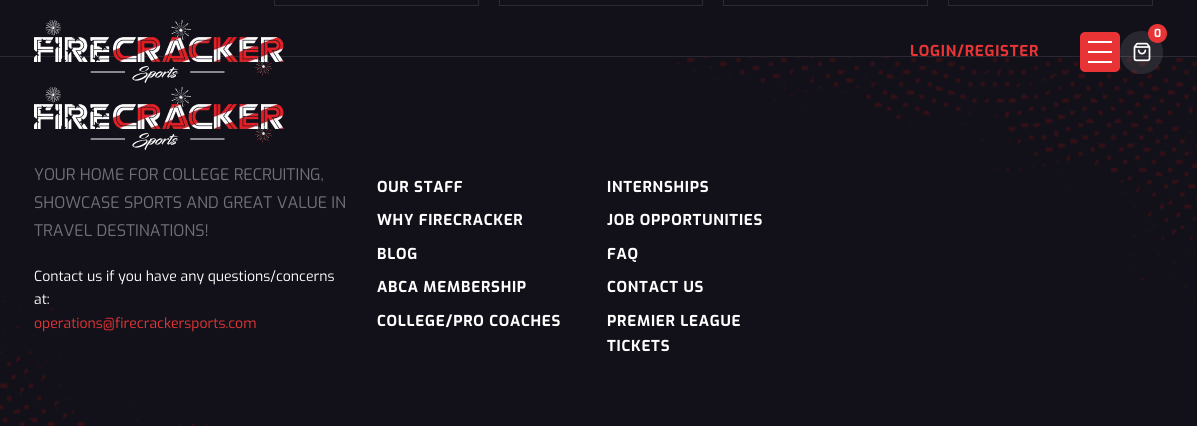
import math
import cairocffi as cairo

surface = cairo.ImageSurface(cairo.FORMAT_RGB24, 1197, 426)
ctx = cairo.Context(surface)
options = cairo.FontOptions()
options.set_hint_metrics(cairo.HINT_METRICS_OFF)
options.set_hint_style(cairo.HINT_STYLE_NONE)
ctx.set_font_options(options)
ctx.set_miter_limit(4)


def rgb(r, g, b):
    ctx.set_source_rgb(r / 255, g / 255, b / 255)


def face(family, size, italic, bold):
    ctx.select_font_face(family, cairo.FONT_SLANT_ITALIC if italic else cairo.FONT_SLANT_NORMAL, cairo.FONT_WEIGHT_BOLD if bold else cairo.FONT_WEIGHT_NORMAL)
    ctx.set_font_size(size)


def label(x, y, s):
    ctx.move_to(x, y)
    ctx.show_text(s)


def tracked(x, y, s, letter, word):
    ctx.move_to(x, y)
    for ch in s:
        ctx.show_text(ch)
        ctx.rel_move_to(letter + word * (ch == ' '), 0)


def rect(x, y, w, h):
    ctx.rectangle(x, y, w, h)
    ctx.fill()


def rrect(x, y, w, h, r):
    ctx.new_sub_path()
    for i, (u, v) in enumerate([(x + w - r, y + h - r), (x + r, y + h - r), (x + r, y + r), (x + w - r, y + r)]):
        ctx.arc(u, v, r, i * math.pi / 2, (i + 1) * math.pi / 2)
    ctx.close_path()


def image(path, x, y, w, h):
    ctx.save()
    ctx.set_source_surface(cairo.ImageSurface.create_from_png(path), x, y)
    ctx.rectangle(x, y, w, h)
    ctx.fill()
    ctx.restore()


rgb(18, 17, 26)
ctx.paint()
rgb(42, 41, 49)
rect(0, 56, 1197, 1)
image('image0.png', 34, 20, 250, 63)
image('image3.png', 676, 57, 521, 243)
face('Exo', 15, 0, 1)
rgb(232, 52, 52)
tracked(910, 56, 'LOGIN/REGISTER', 0.75, 0)
rrect(1080, 32, 40, 40, 5)
ctx.fill()
rgb(255, 255, 255)
rect(1088, 51, 24, 2)
rect(1088, 41, 24, 2)
rect(1088, 61, 24, 2)
ctx.set_source_rgba(1, 1, 1, 0.1)
ctx.arc(1141.5, 52.5, 21.5, 0, 2 * math.pi)
ctx.fill()
image('image1.png', 1133, 42, 18, 20)
rgb(232, 52, 52)
ctx.arc(1157.5, 33.5, 9.5, 0, 2 * math.pi)
ctx.fill()
face('Exo', 11, 0, 1)
rgb(255, 255, 255)
tracked(1154, 37, '0', 1, 0)
ctx.rectangle(274.5, -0.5, 204, 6)
rgb(44, 43, 51)
ctx.set_line_width(1)
ctx.stroke()
ctx.rectangle(499.5, -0.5, 203, 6)
ctx.stroke()
ctx.rectangle(723.5, -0.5, 204, 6)
ctx.stroke()
ctx.rectangle(948.5, -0.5, 204, 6)
ctx.stroke()
image('image2.png', 34, 87, 250, 63)
face('Exo', 16, 0, 0)
rgb(113, 112, 118)
label(34, 180, 'YOUR HOME FOR COLLEGE RECRUITING,')
label(34, 208, 'SHOWCASE SPORTS AND GREAT VALUE IN')
label(34, 236, 'TRAVEL DESTINATIONS!')
face('Exo', 14, 0, 0)
rgb(255, 255, 255)
label(34, 281, 'Contact us if you have any questions/concerns')
image('image4.png', 0, 300, 208, 126)
label(34, 304, 'at:')
rgb(232, 52, 52)
label(34, 328, 'operations@firecrackersports.com')
face('Exo', 15, 0, 1)
rgb(255, 255, 255)
tracked(377, 192, 'OUR STAFF', 0.75, 0)
tracked(377, 225, 'WHY FIRECRACKER', 0.75, 0)
tracked(377, 259, 'BLOG', 0.75, 0)
tracked(377, 292, 'ABCA MEMBERSHIP', 0.75, 0)
tracked(377, 326, 'COLLEGE/PRO COACHES', 0.75, 0)
tracked(607, 192, 'INTERNSHIPS', 0.75, 0)
tracked(607, 225, 'JOB OPPORTUNITIES', 0.75, 0)
tracked(607, 259, 'FAQ', 0.75, 0)
tracked(607, 292, 'CONTACT US', 0.75, 0)
tracked(607, 326, 'PREMIER LEAGUE', 0.75, 0)
tracked(607, 351, 'TICKETS', 0.75, 0)
surface.write_to_png('render.png')
